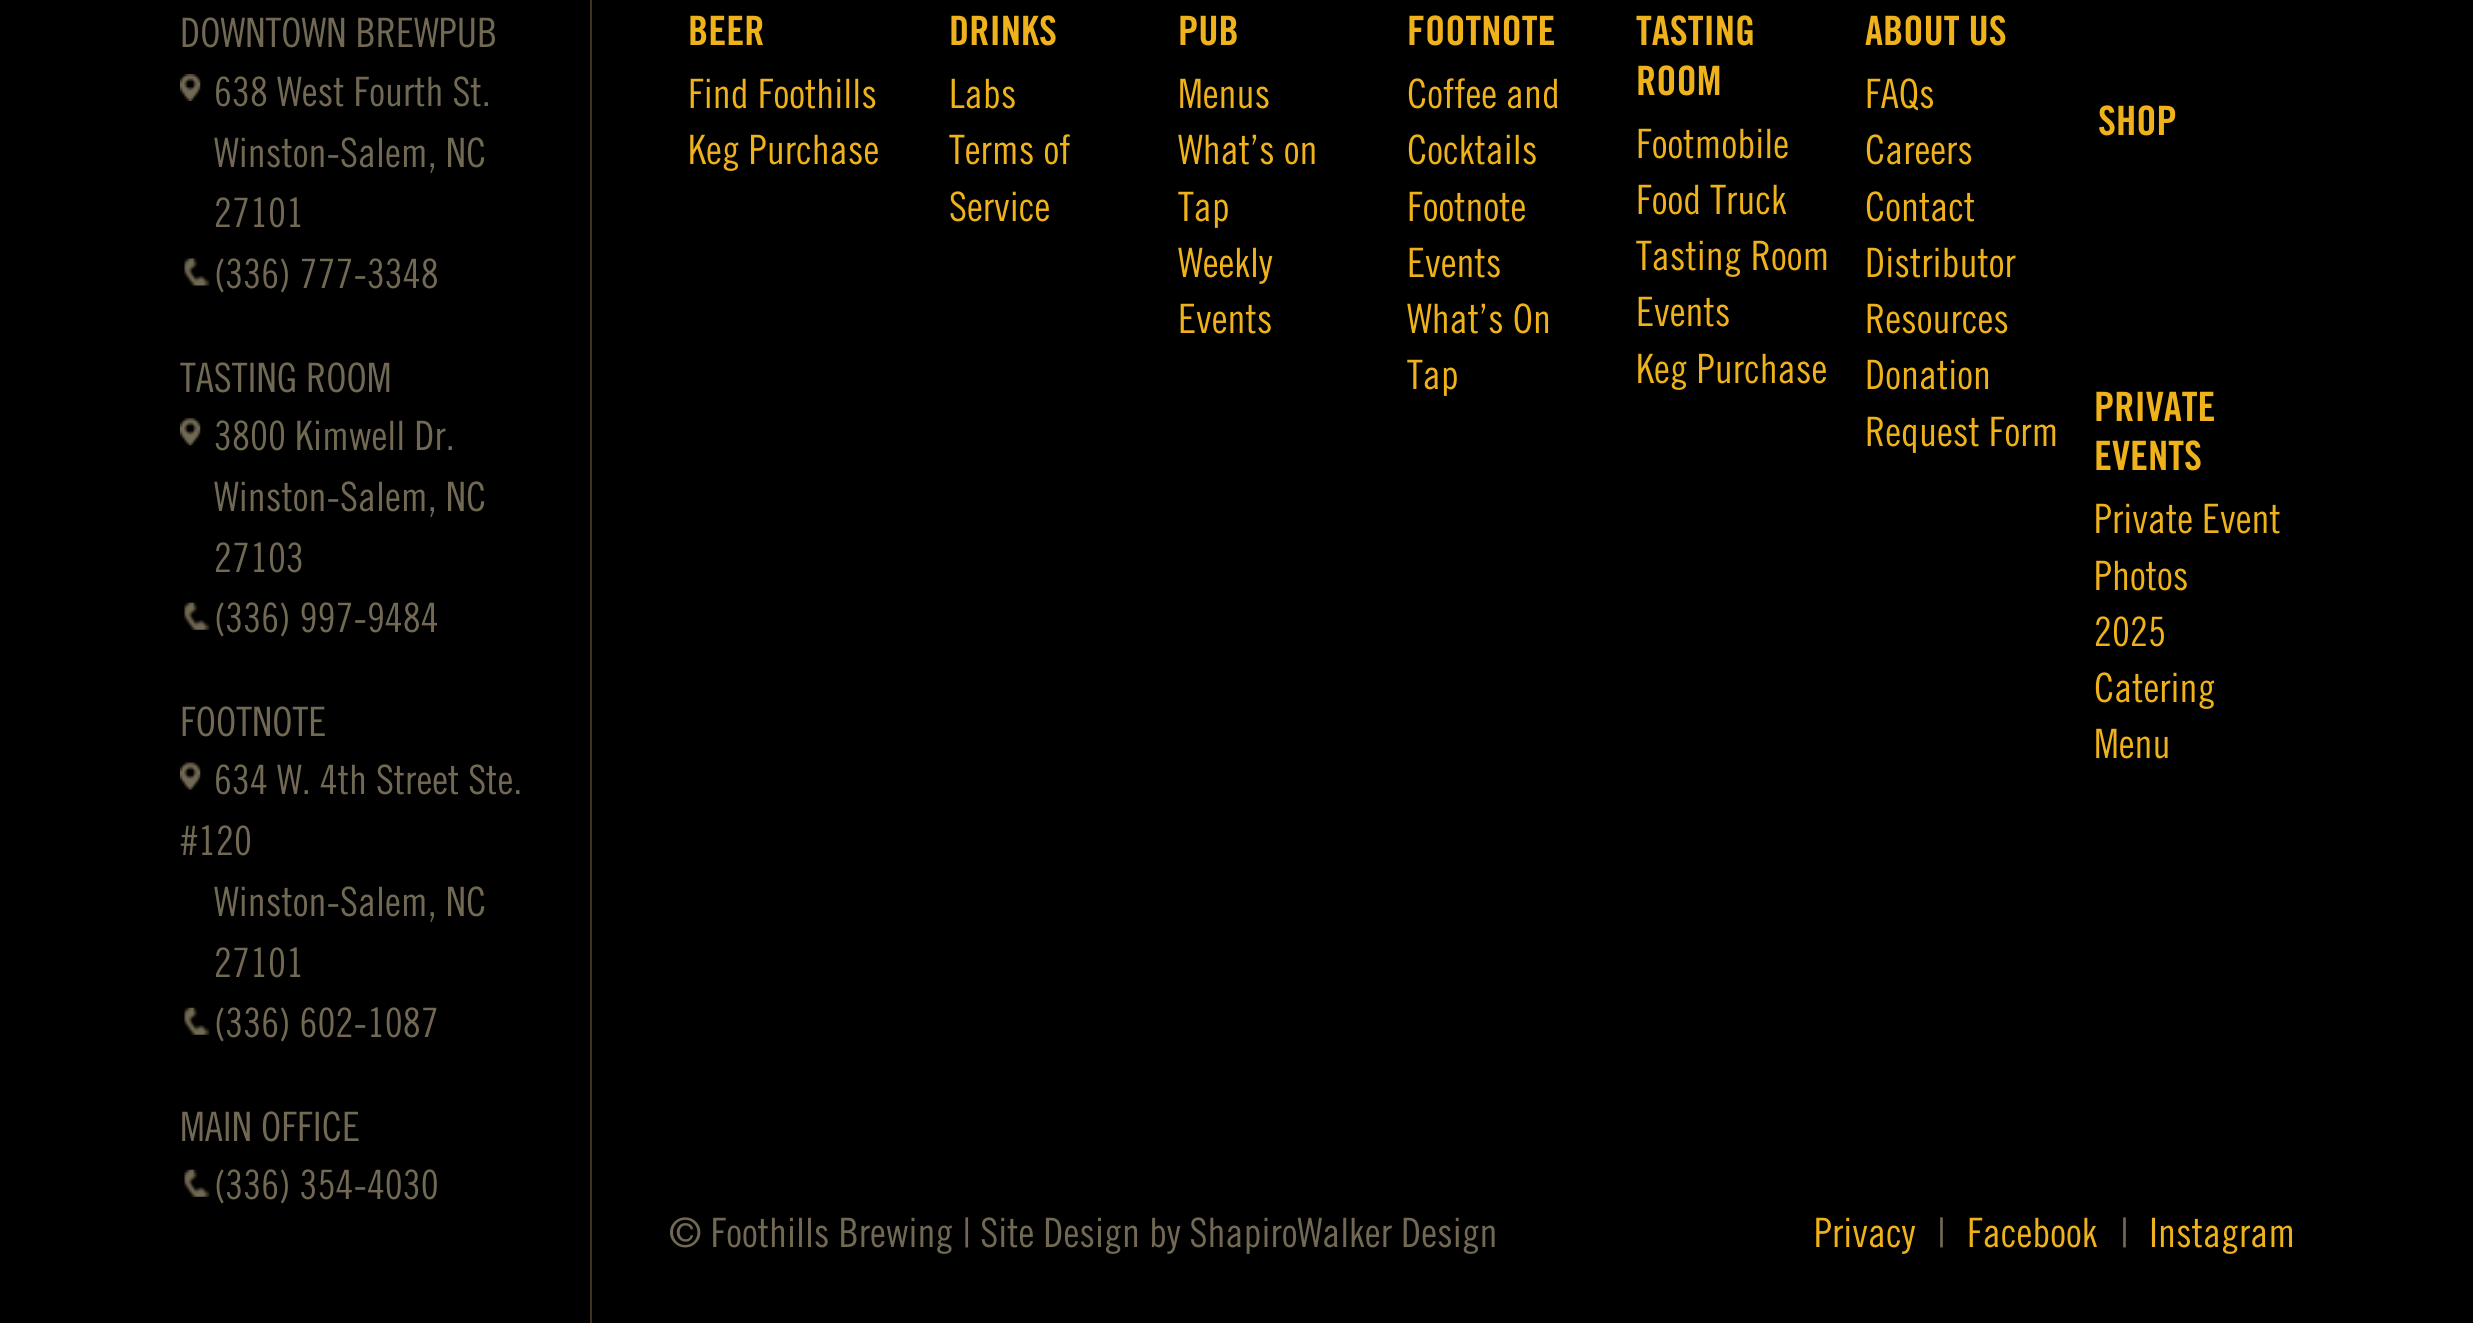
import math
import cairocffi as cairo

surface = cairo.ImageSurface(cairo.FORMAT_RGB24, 2473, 1323)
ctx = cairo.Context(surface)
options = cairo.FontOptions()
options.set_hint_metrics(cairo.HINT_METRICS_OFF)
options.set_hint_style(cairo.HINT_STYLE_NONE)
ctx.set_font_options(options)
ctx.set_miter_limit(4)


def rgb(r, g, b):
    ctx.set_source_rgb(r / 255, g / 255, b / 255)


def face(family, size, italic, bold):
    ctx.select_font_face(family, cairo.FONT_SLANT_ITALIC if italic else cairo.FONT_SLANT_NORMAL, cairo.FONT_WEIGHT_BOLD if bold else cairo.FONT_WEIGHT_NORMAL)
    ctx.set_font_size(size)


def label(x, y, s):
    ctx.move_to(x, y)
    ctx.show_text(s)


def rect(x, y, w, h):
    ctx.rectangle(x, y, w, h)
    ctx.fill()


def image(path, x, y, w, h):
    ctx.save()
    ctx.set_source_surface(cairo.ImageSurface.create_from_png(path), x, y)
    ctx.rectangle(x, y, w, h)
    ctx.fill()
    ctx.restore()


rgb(0, 0, 0)
ctx.paint()
face('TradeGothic', 40.5, 0, 0)
rgb(113, 105, 83)
label(180, 47, 'DOWNTOWN BREWPUB')
image('image0.png', 180, 74, 21, 27)
label(214, 106, '638 West Fourth St.')
label(214, 167, 'Winston-Salem, NC')
label(214, 227, '27101')
image('image1.png', 184, 258, 26, 28)
label(214, 288, '(336) 777-3348')
label(180, 392, 'TASTING ROOM')
image('image2.png', 180, 418, 21, 28)
label(214, 450, '3800 Kimwell Dr.')
label(214, 511, 'Winston-Salem, NC')
label(214, 572, '27103')
image('image3.png', 184, 602, 26, 28)
label(214, 632, '(336) 997-9484')
label(180, 736, 'FOOTNOTE')
image('image4.png', 180, 762, 21, 28)
label(214, 794, '634 W. 4th Street Ste.')
label(180, 855, '#120')
label(214, 916, 'Winston-Salem, NC')
label(214, 977, '27101')
image('image5.png', 184, 1007, 26, 28)
label(214, 1037, '(336) 602-1087')
label(180, 1141, 'MAIN OFFICE')
image('image3.png', 184, 1169, 26, 28)
label(214, 1199, '(336) 354-4030')
rgb(62, 52, 29)
rect(590, 0, 2, 1323)
face('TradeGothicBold', 40.5, 0, 0)
rgb(239, 178, 27)
label(688, 45, 'BEER')
face('TradeGothic', 40.5, 0, 0)
label(688, 108, 'Find Foothills')
label(688, 164, 'Keg Purchase')
face('TradeGothicBold', 40.5, 0, 0)
label(949, 45, 'DRINKS')
face('TradeGothic', 40.5, 0, 0)
label(949, 108, 'Labs')
label(949, 164, 'Terms of')
label(949, 221, 'Service')
face('TradeGothicBold', 40.5, 0, 0)
label(1178, 45, 'PUB')
face('TradeGothic', 40.5, 0, 0)
label(1178, 108, 'Menus')
label(1178, 164, 'What’s on')
label(1178, 221, 'Tap')
label(1178, 277, 'Weekly')
label(1178, 333, 'Events')
face('TradeGothicBold', 40.5, 0, 0)
label(1407, 45, 'FOOTNOTE')
face('TradeGothic', 40.5, 0, 0)
label(1407, 108, 'Coffee and')
label(1407, 164, 'Cocktails')
label(1407, 221, 'Footnote')
label(1407, 277, 'Events')
label(1407, 333, 'What’s On')
label(1407, 389, 'Tap')
face('TradeGothicBold', 40.5, 0, 0)
label(1636, 45, 'TASTING')
label(1636, 95, 'ROOM')
face('TradeGothic', 40.5, 0, 0)
label(1636, 158, 'Footmobile')
label(1636, 214, 'Food Truck')
label(1636, 270, 'Tasting Room')
label(1636, 326, 'Events')
label(1636, 383, 'Keg Purchase')
face('TradeGothicBold', 40.5, 0, 0)
label(1865, 45, 'ABOUT US')
face('TradeGothic', 40.5, 0, 0)
label(1865, 108, 'FAQs')
label(1865, 164, 'Careers')
label(1865, 221, 'Contact')
label(1865, 277, 'Distributor')
label(1865, 333, 'Resources')
label(1865, 389, 'Donation')
label(1865, 446, 'Request Form')
face('TradeGothicBold', 40.5, 0, 0)
label(2098, 135, 'SHOP')
label(2094, 421, 'PRIVATE')
label(2094, 470, 'EVENTS')
face('TradeGothic', 40.5, 0, 0)
label(2094, 533, 'Private Event')
label(2094, 590, 'Photos')
label(2094, 646, '2025')
label(2094, 702, 'Catering')
label(2094, 758, 'Menu')
rgb(113, 105, 83)
label(669, 1247, '© Foothills Brewing | Site Design by ShapiroWalker Design')
rgb(239, 178, 27)
label(1814, 1247, 'Privacy')
rgb(113, 105, 83)
label(1937, 1247, '|')
rgb(239, 178, 27)
label(1967, 1247, 'Facebook')
rgb(113, 105, 83)
label(2120, 1247, '|')
rgb(239, 178, 27)
label(2149, 1247, 'Instagram')
surface.write_to_png('render.png')
